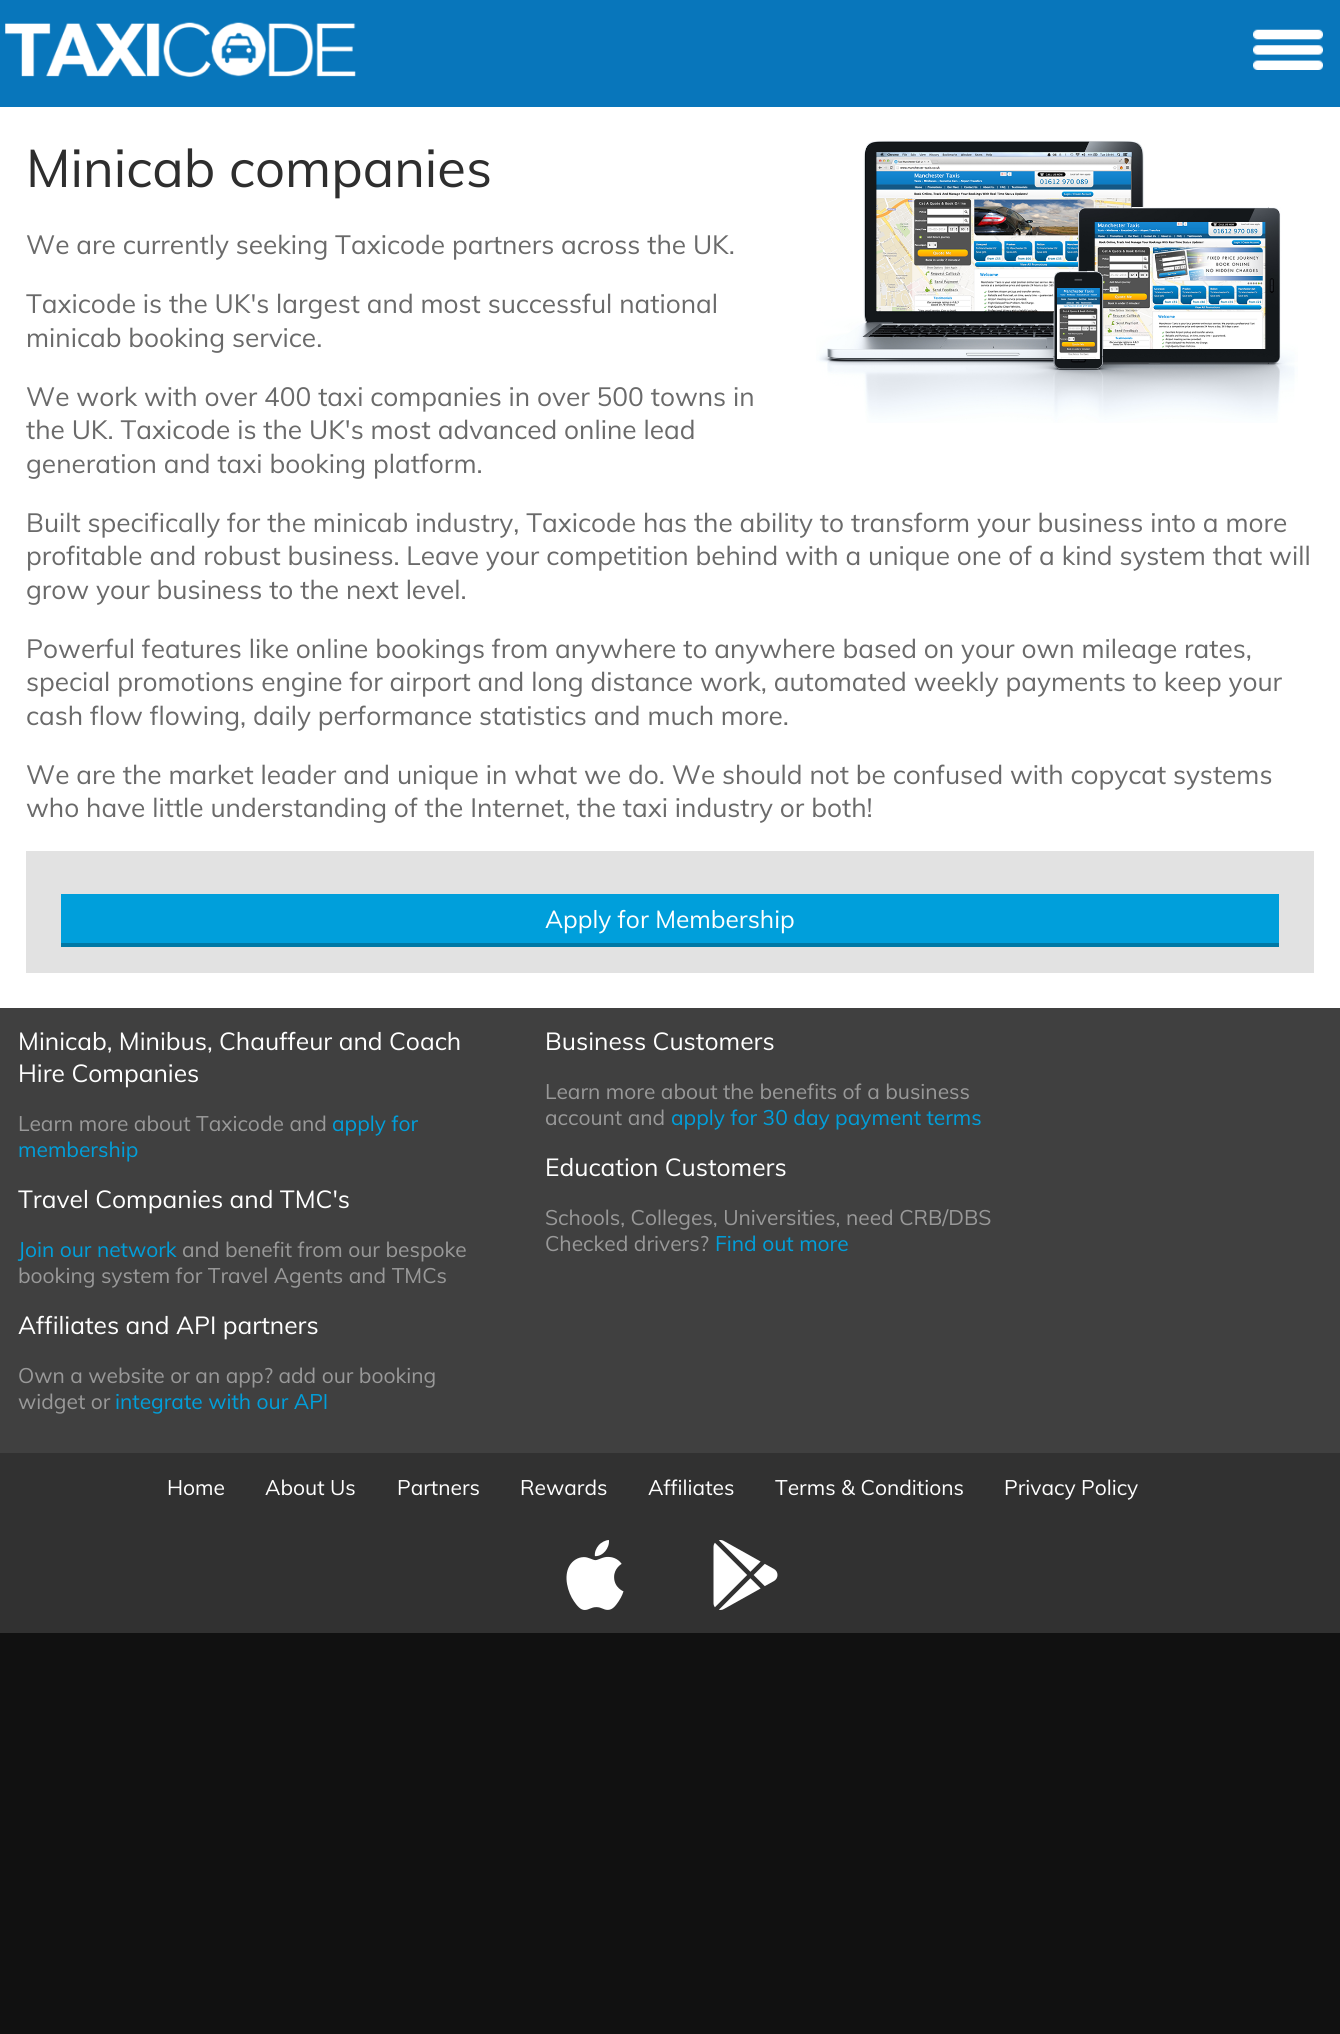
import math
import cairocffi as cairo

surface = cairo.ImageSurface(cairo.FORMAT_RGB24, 1340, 2034)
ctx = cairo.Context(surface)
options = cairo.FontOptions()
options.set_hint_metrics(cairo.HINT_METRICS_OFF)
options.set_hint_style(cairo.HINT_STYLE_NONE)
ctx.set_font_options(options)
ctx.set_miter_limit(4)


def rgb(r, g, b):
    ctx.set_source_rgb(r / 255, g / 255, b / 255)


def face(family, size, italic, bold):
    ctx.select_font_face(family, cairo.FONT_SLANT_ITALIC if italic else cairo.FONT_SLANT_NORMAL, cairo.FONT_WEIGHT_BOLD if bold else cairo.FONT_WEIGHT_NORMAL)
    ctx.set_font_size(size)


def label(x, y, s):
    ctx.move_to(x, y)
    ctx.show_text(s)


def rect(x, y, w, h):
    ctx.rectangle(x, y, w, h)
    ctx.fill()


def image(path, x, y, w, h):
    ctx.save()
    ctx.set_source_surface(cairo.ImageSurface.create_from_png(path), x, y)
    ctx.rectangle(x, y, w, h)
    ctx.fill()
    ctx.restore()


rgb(17, 17, 17)
ctx.paint()
rgb(255, 255, 255)
rect(0, 107, 1340, 901)
rgb(8, 118, 187)
rect(0, 0, 1340, 107)
image('image0.png', 5, 22, 351, 55)
image('image1.png', 1253, 29, 70, 41)
face('Muli', 52.5, 0, 0)
rgb(46, 46, 46)
label(26, 187, 'Minicab companies')
image('image2.png', 816, 140, 482, 283)
face('Muli', 26.25, 0, 0)
rgb(106, 106, 106)
label(26, 254, 'We are currently seeking Taxicode partners across the UK.')
label(26, 313, 'Taxicode is the UK\'s largest and most successful national')
label(26, 347, 'minicab booking service.')
label(26, 406, 'We work with over 400 taxi companies in over 500 towns in')
label(26, 439, 'the UK. Taxicode is the UK\'s most advanced online lead')
label(26, 473, 'generation and taxi booking platform.')
label(26, 532, 'Built specifically for the minicab industry, Taxicode has the ability to transform your business into a more')
label(26, 565, 'profitable and robust business. Leave your competition behind with a unique one of a kind system that will')
label(26, 599, 'grow your business to the next level.')
label(26, 658, 'Powerful features like online bookings from anywhere to anywhere based on your own mileage rates,')
label(26, 691, 'special promotions engine for airport and long distance work, automated weekly payments to keep your')
label(26, 725, 'cash flow flowing, daily performance statistics and much more.')
label(26, 784, 'We are the market leader and unique in what we do. We should not be confused with copycat systems')
label(26, 817, 'who have little understanding of the Internet, the taxi industry or both!')
rgb(226, 226, 226)
rect(26, 851, 1288, 122)
rgb(0, 159, 219)
rect(61, 894, 1218, 49)
rgb(0, 120, 165)
rect(61, 943, 1218, 4)
face('Muli', 24.5, 0, 0)
rgb(255, 255, 255)
label(545, 928, 'Apply for Membership')
rgb(64, 64, 64)
rect(0, 1008, 1340, 445)
face('Muli', 24.6, 0, 0)
rgb(255, 255, 255)
label(18, 1050, 'Minicab, Minibus, Chauffeur and Coach')
label(18, 1082, 'Hire Companies')
face('Muli', 21, 0, 0)
rgb(153, 153, 153)
label(18, 1131, 'Learn more about Taxicode and')
rgb(0, 159, 219)
label(332, 1131, 'apply for')
label(18, 1157, 'membership')
face('Muli', 24.6, 0, 0)
rgb(255, 255, 255)
label(18, 1208, 'Travel Companies and TMC\'s')
face('Muli', 21, 0, 0)
rgb(0, 159, 219)
label(18, 1257, 'Join our network')
rgb(153, 153, 153)
label(182, 1257, 'and benefit from our bespoke')
label(18, 1283, 'booking system for Travel Agents and TMCs')
face('Muli', 24.6, 0, 0)
rgb(255, 255, 255)
label(18, 1334, 'Affiliates and API partners')
face('Muli', 21, 0, 0)
rgb(153, 153, 153)
label(18, 1383, 'Own a website or an app? add our booking')
label(18, 1409, 'widget or')
rgb(0, 159, 219)
label(115, 1409, 'integrate with our API')
face('Muli', 24.6, 0, 0)
rgb(255, 255, 255)
label(545, 1050, 'Business Customers')
face('Muli', 21, 0, 0)
rgb(153, 153, 153)
label(545, 1099, 'Learn more about the benefits of a business')
label(545, 1125, 'account and')
rgb(0, 159, 219)
label(671, 1125, 'apply for 30 day payment terms')
face('Muli', 24.6, 0, 0)
rgb(255, 255, 255)
label(545, 1176, 'Education Customers')
face('Muli', 21, 0, 0)
rgb(153, 153, 153)
label(545, 1225, 'Schools, Colleges, Universities, need CRB/DBS')
label(545, 1251, 'Checked drivers?')
rgb(0, 159, 219)
label(715, 1251, 'Find out more')
rgb(49, 49, 49)
rect(0, 1453, 1340, 180)
rgb(255, 255, 255)
label(167, 1495, 'Home')
label(265, 1495, 'About Us')
label(397, 1495, 'Partners')
label(520, 1495, 'Rewards')
label(648, 1495, 'Affiliates')
label(775, 1495, 'Terms & Conditions')
label(1004, 1495, 'Privacy Policy')
image('image3.png', 566, 1540, 58, 70)
image('image4.png', 713, 1540, 65, 70)
surface.write_to_png('render.png')
